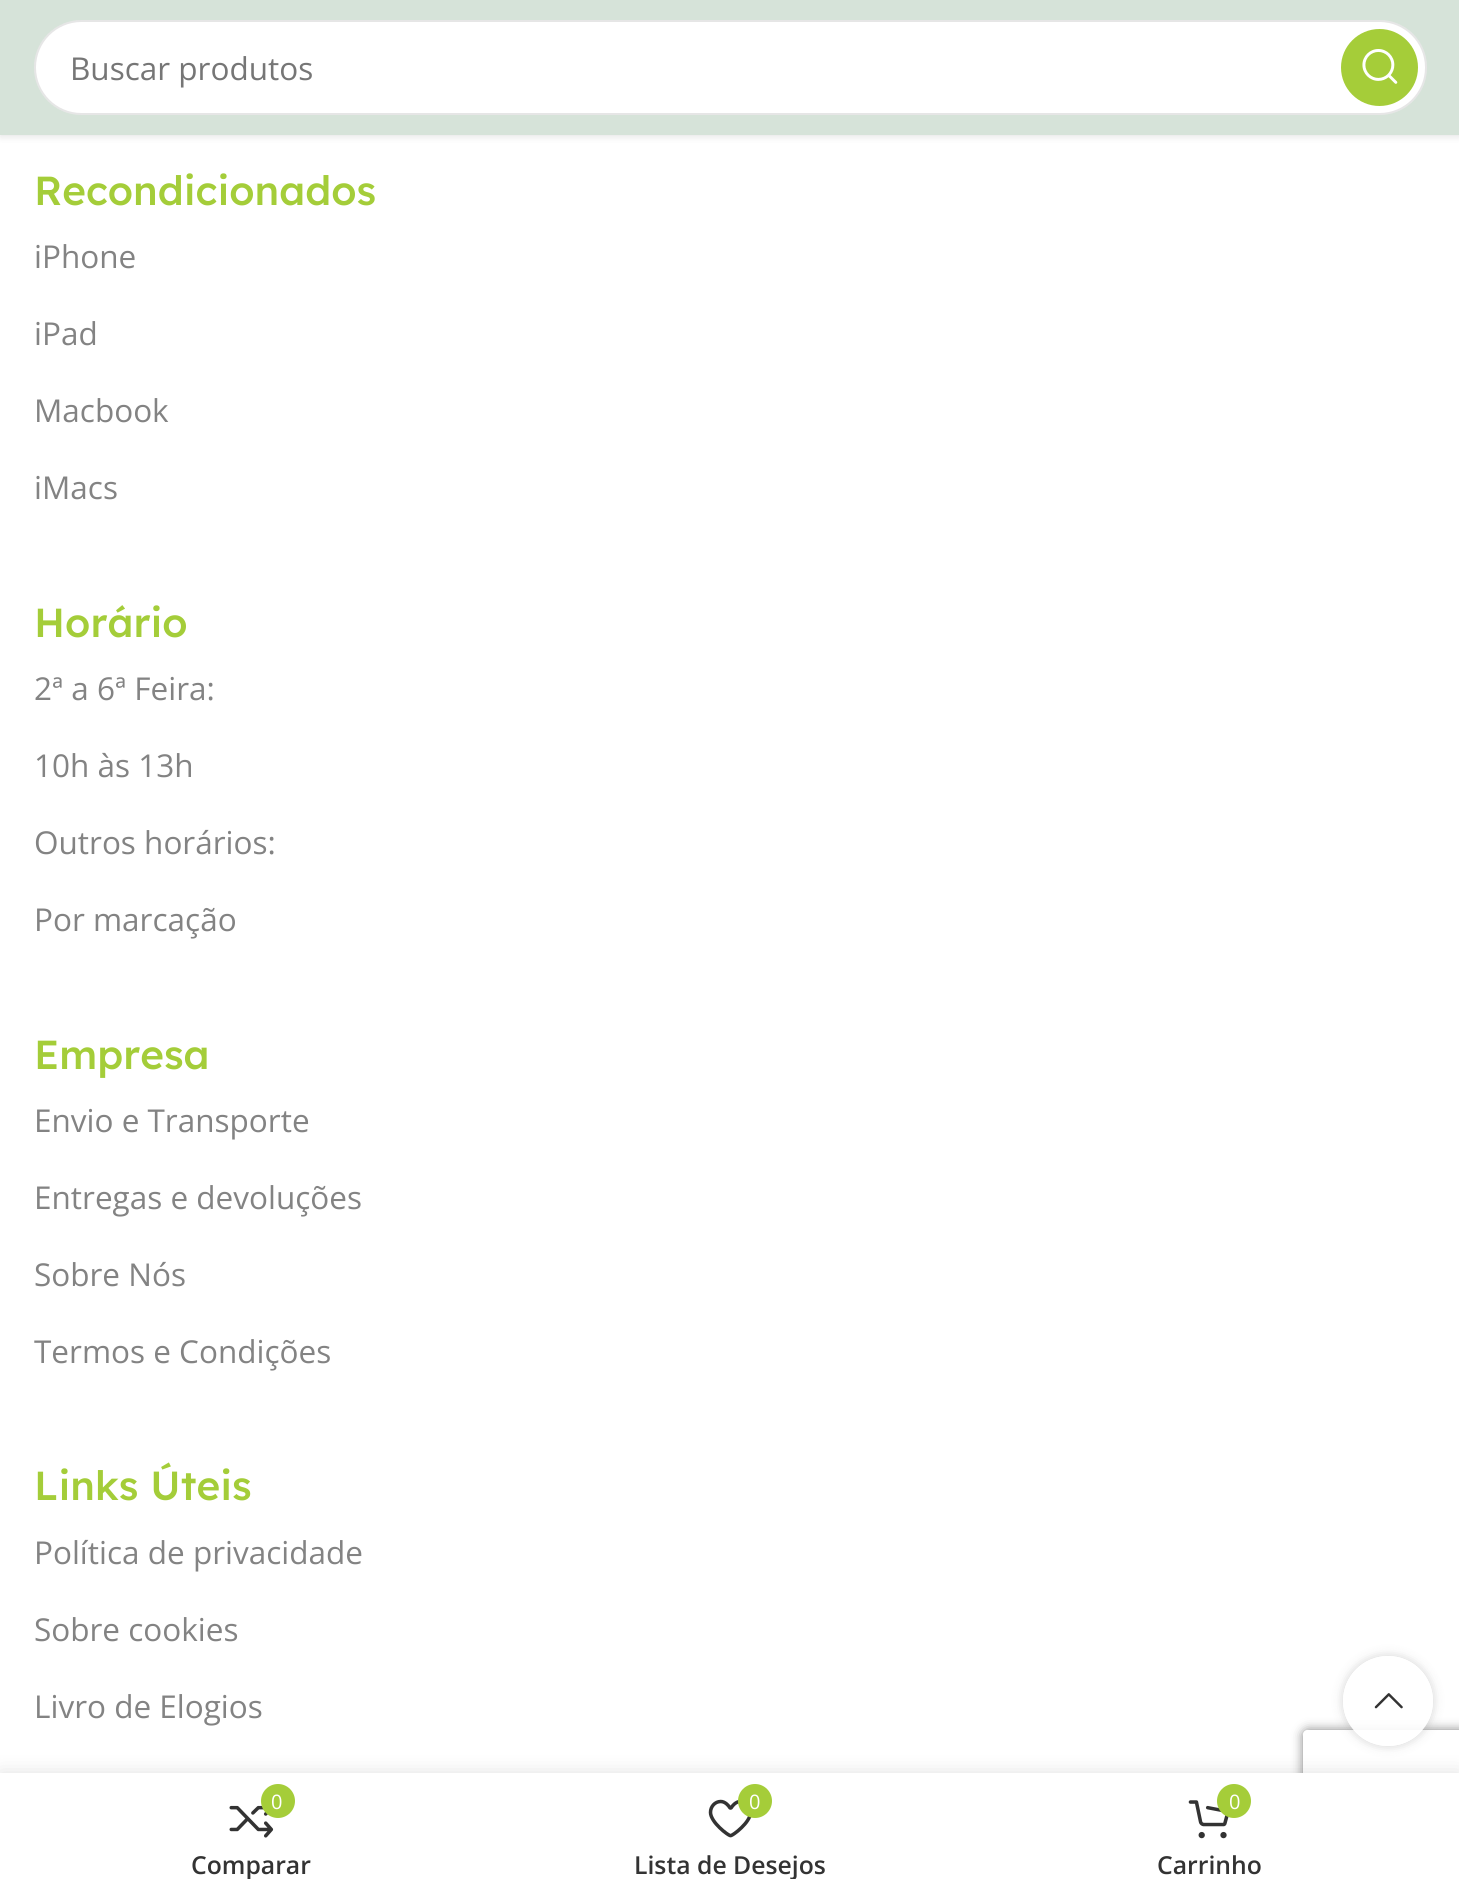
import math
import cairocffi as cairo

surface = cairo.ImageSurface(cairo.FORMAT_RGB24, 1459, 1895)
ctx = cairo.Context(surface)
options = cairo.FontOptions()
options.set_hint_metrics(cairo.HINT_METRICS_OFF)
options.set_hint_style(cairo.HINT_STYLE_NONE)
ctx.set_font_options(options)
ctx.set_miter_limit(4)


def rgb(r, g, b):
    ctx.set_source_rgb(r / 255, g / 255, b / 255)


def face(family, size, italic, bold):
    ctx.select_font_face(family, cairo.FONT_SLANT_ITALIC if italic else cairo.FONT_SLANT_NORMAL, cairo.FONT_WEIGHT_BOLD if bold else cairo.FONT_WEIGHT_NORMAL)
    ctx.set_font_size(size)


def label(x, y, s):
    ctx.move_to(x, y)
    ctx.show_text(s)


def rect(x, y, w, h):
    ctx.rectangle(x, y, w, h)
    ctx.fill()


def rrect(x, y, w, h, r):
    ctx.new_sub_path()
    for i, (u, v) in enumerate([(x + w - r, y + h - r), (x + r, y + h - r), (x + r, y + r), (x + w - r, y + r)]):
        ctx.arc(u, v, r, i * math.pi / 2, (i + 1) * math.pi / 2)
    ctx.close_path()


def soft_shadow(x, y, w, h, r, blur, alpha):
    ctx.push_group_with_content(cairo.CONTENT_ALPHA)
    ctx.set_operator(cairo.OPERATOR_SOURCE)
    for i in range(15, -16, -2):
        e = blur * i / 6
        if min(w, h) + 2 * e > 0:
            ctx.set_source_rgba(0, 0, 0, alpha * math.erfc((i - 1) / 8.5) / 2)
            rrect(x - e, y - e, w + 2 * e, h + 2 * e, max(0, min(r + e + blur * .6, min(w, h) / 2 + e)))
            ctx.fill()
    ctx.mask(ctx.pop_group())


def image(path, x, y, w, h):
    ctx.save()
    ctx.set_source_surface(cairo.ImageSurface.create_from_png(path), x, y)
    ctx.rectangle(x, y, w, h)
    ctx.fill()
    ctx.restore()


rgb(255, 255, 255)
ctx.paint()
rgb(0, 0, 0)
soft_shadow(0, 2, 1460, 135, 0, 3.5, 0.1)
rgb(214, 227, 217)
rect(0, 0, 1459, 135)
rgb(255, 255, 255)
rrect(34, 20, 1393, 95, 47.5)
ctx.fill()
rrect(35, 21, 1391, 93, 46.5)
ctx.set_source_rgba(0, 0, 0, 0.1)
ctx.stroke()
face('Open Sans', 31.5, 0, 0)
rgb(118, 118, 118)
label(70, 80, 'Buscar produtos')
rgb(165, 205, 57)
ctx.new_path()
ctx.arc(1379.5, 67.5, 38.5, 0, 2 * math.pi)
ctx.fill()
image('image0.png', 1362, 49, 36, 35)
face('Lexend Deca Medium', 40.5, 0, 0)
rgb(164, 205, 57)
label(34, 205, 'Recondicionados')
face('Open Sans', 31.5, 0, 0)
rgb(131, 131, 131)
label(34, 268, 'iPhone')
label(34, 345, 'iPad')
label(34, 422, 'Macbook')
label(34, 499, 'iMacs')
face('Lexend Deca Medium', 40.5, 0, 0)
rgb(164, 205, 57)
label(34, 637, 'Horário')
face('Open Sans', 31.5, 0, 0)
rgb(131, 131, 131)
label(34, 700, '2ª a 6ª Feira:')
label(34, 777, '10h às 13h')
label(34, 854, 'Outros horários:')
label(34, 931, 'Por marcação')
face('Lexend Deca Medium', 40.5, 0, 0)
rgb(164, 205, 57)
label(34, 1069, 'Empresa')
face('Open Sans', 31.5, 0, 0)
rgb(131, 131, 131)
label(34, 1132, 'Envio e Transporte')
label(34, 1209, 'Entregas e devoluções')
label(34, 1286, 'Sobre Nós')
label(34, 1363, 'Termos e Condições')
face('Lexend Deca Medium', 40.5, 0, 0)
rgb(164, 205, 57)
label(34, 1500, 'Links Úteis')
face('Open Sans', 31.5, 0, 0)
rgb(131, 131, 131)
label(34, 1564, 'Política de privacidade')
label(34, 1641, 'Sobre cookies')
label(34, 1718, 'Livro de Elogios')
ctx.save()
ctx.set_fill_rule(cairo.FILL_RULE_EVEN_ODD)
ctx.new_path()
ctx.move_to(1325, 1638)
ctx.line_to(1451, 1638)
ctx.line_to(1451, 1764)
ctx.line_to(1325, 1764)
ctx.close_path()
ctx.move_to(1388, 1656)
ctx.curve_to(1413, 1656, 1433, 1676, 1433, 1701)
ctx.curve_to(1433, 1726, 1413, 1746, 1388, 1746)
ctx.curve_to(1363, 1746, 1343, 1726, 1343, 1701)
ctx.curve_to(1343, 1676, 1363, 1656, 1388, 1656)
ctx.close_path()
ctx.clip()
rgb(0, 0, 0)
soft_shadow(1343, 1656, 90, 90, 45, 5.5, 0.17)
ctx.restore()
ctx.save()
ctx.set_fill_rule(cairo.FILL_RULE_EVEN_ODD)
ctx.new_path()
ctx.move_to(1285, 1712)
ctx.line_to(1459, 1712)
ctx.line_to(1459, 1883)
ctx.line_to(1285, 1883)
ctx.close_path()
ctx.move_to(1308, 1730)
ctx.line_to(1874, 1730)
ctx.curve_to(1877, 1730, 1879, 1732, 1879, 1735)
ctx.line_to(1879, 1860)
ctx.curve_to(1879, 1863, 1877, 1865, 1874, 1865)
ctx.line_to(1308, 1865)
ctx.curve_to(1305, 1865, 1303, 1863, 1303, 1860)
ctx.line_to(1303, 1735)
ctx.curve_to(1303, 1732, 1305, 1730, 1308, 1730)
ctx.close_path()
ctx.clip()
rgb(128, 128, 128)
soft_shadow(1303, 1730, 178, 135, 5, 5.5, 1)
ctx.restore()
ctx.set_source_rgba(1, 1, 1, 0.9)
ctx.arc(1388, 1701, 45, 0, 2 * math.pi)
ctx.fill()
image('image1.png', 1374, 1693, 29, 16)
rgb(0, 0, 0)
soft_shadow(0, 1773, 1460, 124, 0, 10, 0.12)
rgb(255, 255, 255)
rect(0, 1773, 1459, 122)
image('image2.png', 229, 1805, 45, 33)
rgb(165, 205, 57)
ctx.arc(278, 1801, 17, 0, 2 * math.pi)
ctx.fill()
face('Open Sans', 20, 0, 0)
rgb(255, 255, 255)
label(271, 1809, '0')
ctx.save()
ctx.rectangle(34, 1850, 434, 29)
ctx.clip()
face('Open Sans SemiBold', 24.75, 0, 0)
rgb(51, 51, 51)
label(191, 1874, 'Comparar')
ctx.restore()
image('image3.png', 708, 1799, 44, 39)
rgb(165, 205, 57)
ctx.arc(755, 1801, 17, 0, 2 * math.pi)
ctx.fill()
rgb(255, 255, 255)
label(749, 1809, '0')
ctx.save()
ctx.rectangle(513, 1850, 434, 29)
ctx.clip()
face('Open Sans SemiBold', 24.75, 0, 0)
rgb(51, 51, 51)
label(634, 1874, 'Lista de Desejos')
ctx.restore()
image('image4.png', 1188, 1800, 41, 39)
rgb(165, 205, 57)
ctx.arc(1234, 1801, 17, 0, 2 * math.pi)
ctx.fill()
rgb(255, 255, 255)
label(1229, 1809, '0')
face('Open Sans SemiBold', 24.75, 0, 0)
rgb(51, 51, 51)
label(1157, 1874, 'Carrinho')
surface.write_to_png('render.png')
